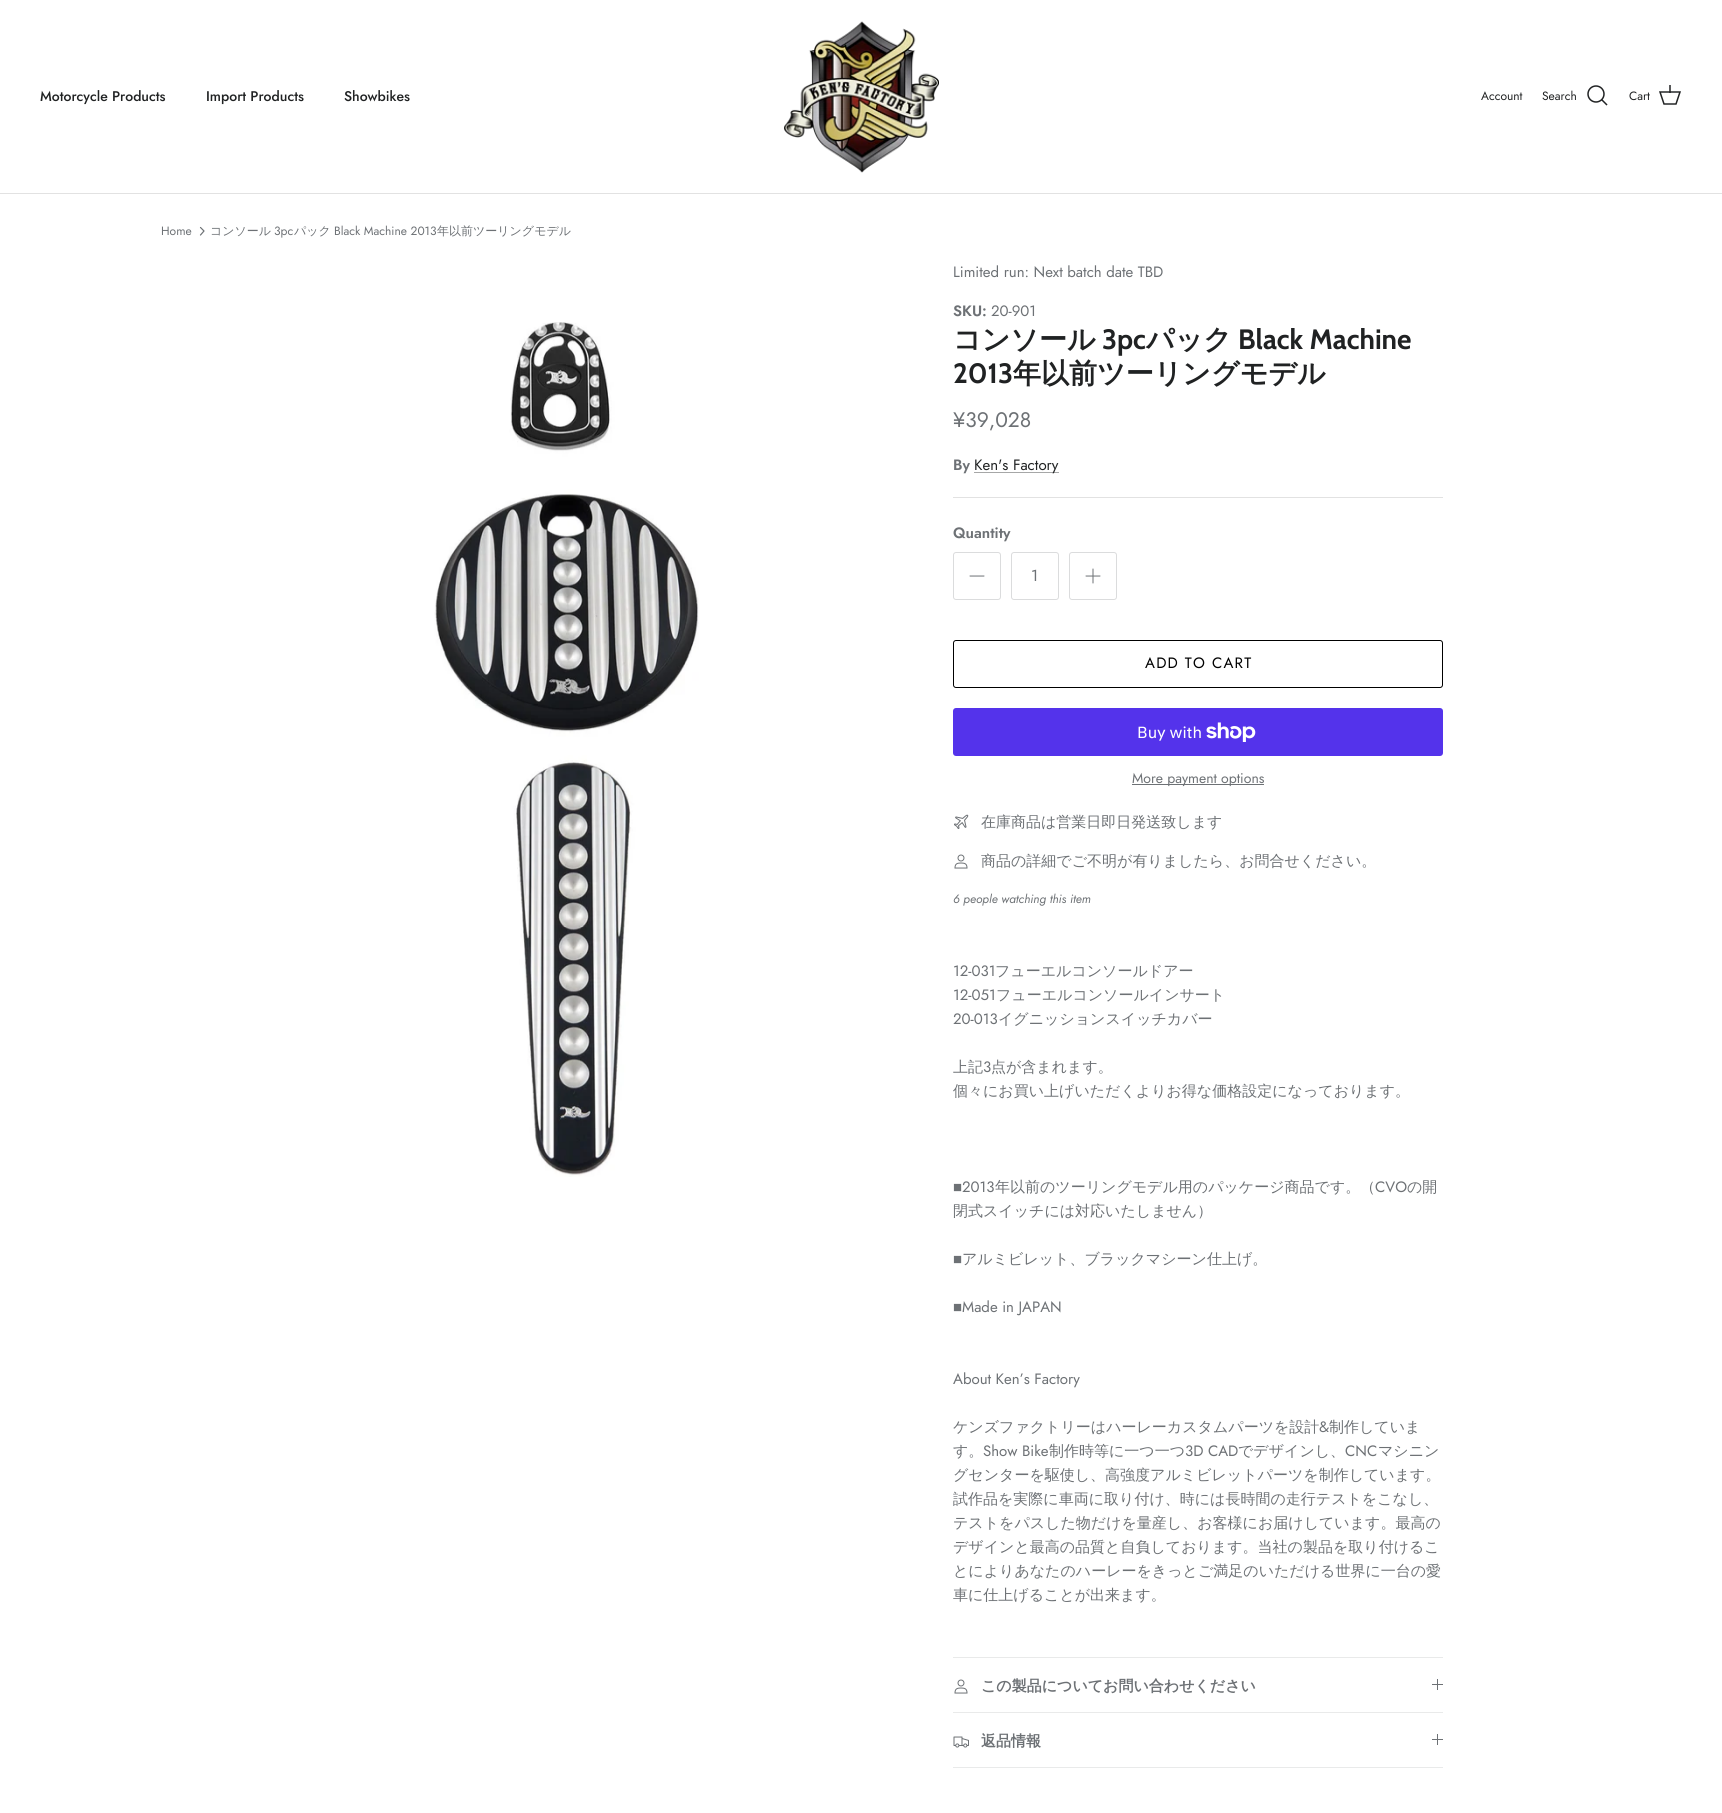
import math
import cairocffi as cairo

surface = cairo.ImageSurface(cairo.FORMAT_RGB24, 1722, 1813)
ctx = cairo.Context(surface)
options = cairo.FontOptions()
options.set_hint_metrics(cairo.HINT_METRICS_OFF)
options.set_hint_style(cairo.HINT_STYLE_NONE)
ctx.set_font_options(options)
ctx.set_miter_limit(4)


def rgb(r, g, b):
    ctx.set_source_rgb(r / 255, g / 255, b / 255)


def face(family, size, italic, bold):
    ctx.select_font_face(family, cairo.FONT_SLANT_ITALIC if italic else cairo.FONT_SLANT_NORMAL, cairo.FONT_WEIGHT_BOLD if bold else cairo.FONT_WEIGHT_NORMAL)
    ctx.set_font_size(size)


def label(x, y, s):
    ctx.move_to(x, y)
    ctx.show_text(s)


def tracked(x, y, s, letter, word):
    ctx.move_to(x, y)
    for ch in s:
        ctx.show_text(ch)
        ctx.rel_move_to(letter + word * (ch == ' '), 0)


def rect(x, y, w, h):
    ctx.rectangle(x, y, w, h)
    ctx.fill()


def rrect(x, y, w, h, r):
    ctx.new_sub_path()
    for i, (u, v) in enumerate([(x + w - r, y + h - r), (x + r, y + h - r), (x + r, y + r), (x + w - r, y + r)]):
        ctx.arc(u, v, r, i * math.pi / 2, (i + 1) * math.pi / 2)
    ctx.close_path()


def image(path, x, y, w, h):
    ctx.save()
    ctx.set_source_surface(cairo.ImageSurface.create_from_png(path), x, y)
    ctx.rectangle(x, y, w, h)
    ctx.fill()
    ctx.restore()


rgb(255, 255, 255)
ctx.paint()
rgb(226, 226, 226)
rect(0, 193, 1722, 1)
face('Jost Medium', 14, 0, 0)
rgb(32, 34, 35)
label(40, 101, 'Motorcycle Products')
label(206, 101, 'Import Products')
label(344, 101, 'Showbikes')
image('image0.png', 784, 21, 155, 152)
face('Jost', 12, 0, 0)
label(1481, 100, 'Account')
label(1542, 100, 'Search')
ctx.new_path()
ctx.arc(1596, 94, 8, 0, 2 * math.pi)
ctx.set_line_width(1.5)
ctx.stroke()
ctx.new_path()
ctx.move_to(1602, 100)
ctx.line_to(1606.5, 104.5)
ctx.set_line_cap(cairo.LINE_CAP_SQUARE)
ctx.stroke()
label(1629, 100, 'Cart')
ctx.new_path()
ctx.move_to(1660, 92)
ctx.line_to(1680, 92)
ctx.line_to(1676, 104)
ctx.line_to(1664, 104)
ctx.close_path()
ctx.set_line_cap(cairo.LINE_CAP_BUTT)
ctx.stroke()
ctx.set_source_rgba(0.125, 0.133, 0.137, 0.75)
rect(1669, 85, 2, 8)
rgb(109, 113, 117)
label(161, 235, 'Home')
ctx.new_path()
ctx.move_to(200.5, 235)
ctx.line_to(204, 231)
ctx.line_to(200.5, 227.5)
ctx.set_line_width(1.2)
ctx.set_line_cap(cairo.LINE_CAP_ROUND)
ctx.set_line_join(cairo.LINE_JOIN_ROUND)
ctx.stroke()
face('WenQuanYi Zen Hei Medium', 12, 0, 0)
label(210, 235, 'コンソール')
face('Jost', 12, 0, 0)
label(274, 235, '3pc')
face('WenQuanYi Zen Hei Medium', 12, 0, 0)
label(294, 235, 'パック')
face('Jost', 12, 0, 0)
label(334, 235, 'Black Machine 2013')
face('WenQuanYi Zen Hei Medium', 12, 0, 0)
label(437, 235, '年以前ツーリングモデル')
image('image1.png', 434, 322, 265, 855)
face('Jost', 15, 0, 0)
label(953, 277, 'Limited run: Next batch date TBD')
face('Jost SemiBold', 15, 0, 0)
label(953, 316, 'SKU:')
face('Jost', 15, 0, 0)
label(991, 316, '20-901')
face('WenQuanYi Zen Hei', 28, 0, 1)
rgb(32, 34, 35)
label(953, 349, 'コンソール')
face('Cabin', 28, 0, 1)
label(1102, 349, '3pc')
face('WenQuanYi Zen Hei', 28, 0, 1)
label(1146, 349, 'パック')
face('Cabin', 28, 0, 1)
label(1238, 349, 'Black Machine')
label(953, 383, '2013')
face('WenQuanYi Zen Hei', 28, 0, 1)
label(1013, 383, '年以前ツーリングモデル')
face('Jost', 21, 0, 0)
rgb(109, 113, 117)
label(953, 427, '¥39,028')
face('Jost SemiBold', 15, 0, 0)
label(953, 470, 'By')
rgb(166, 167, 167)
rect(974, 472, 85, 1)
face('Jost', 15, 0, 0)
rgb(32, 34, 35)
label(974, 470, 'Ken\'s Factory')
rgb(226, 226, 226)
rect(953, 497, 490, 1)
face('Jost SemiBold', 15, 0, 0)
rgb(109, 113, 117)
label(953, 538, 'Quantity')
rrect(953.5, 552.5, 47, 47, 2.5)
rgb(219, 220, 221)
ctx.set_line_width(1)
ctx.set_line_cap(cairo.LINE_CAP_BUTT)
ctx.set_line_join(cairo.LINE_JOIN_MITER)
ctx.stroke()
ctx.new_path()
ctx.move_to(970, 576)
ctx.line_to(984, 576)
rgb(109, 113, 117)
ctx.set_line_cap(cairo.LINE_CAP_ROUND)
ctx.set_line_join(cairo.LINE_JOIN_ROUND)
ctx.stroke()
rrect(1011.5, 552.5, 47, 47, 2.5)
rgb(219, 220, 221)
ctx.set_line_cap(cairo.LINE_CAP_BUTT)
ctx.set_line_join(cairo.LINE_JOIN_MITER)
ctx.stroke()
face('Jost', 16, 0, 0)
rgb(109, 113, 117)
label(1031, 581, '1')
rrect(1069.5, 552.5, 47, 47, 2.5)
rgb(219, 220, 221)
ctx.stroke()
ctx.new_path()
ctx.move_to(1093, 569)
ctx.line_to(1093, 583)
ctx.move_to(1086, 576)
ctx.line_to(1100, 576)
rgb(109, 113, 117)
ctx.set_line_cap(cairo.LINE_CAP_ROUND)
ctx.set_line_join(cairo.LINE_JOIN_ROUND)
ctx.stroke()
rrect(953.5, 640.5, 489, 47, 2.5)
rgb(0, 0, 0)
ctx.set_line_cap(cairo.LINE_CAP_BUTT)
ctx.set_line_join(cairo.LINE_JOIN_MITER)
ctx.stroke()
face('Jost', 15, 0, 0)
tracked(1145, 668, 'ADD TO CART', 1.25, 0)
rgb(84, 51, 235)
rrect(953, 708, 490, 48, 3)
ctx.fill()
face('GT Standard', 16, 0, 0)
rgb(255, 255, 255)
label(1137, 738, 'Buy with')
image('image2.png', 1206, 722, 50, 20)
rgb(109, 113, 117)
rect(1132, 784, 132, 1)
face('Jost', 14, 0, 0)
label(1132, 783, 'More payment options')
image('image3.png', 954, 814, 15, 15)
face('WenQuanYi Zen Hei Medium', 15, 0, 0)
label(981, 827, '在庫商品は営業日即日発送致します')
image('image4.png', 954, 854, 14, 15)
label(981, 866, '商品の詳細でご不明が有りましたら、お問合せください。')
face('Jost', 12, 1, 0)
label(953, 903, '6 people watching this item')
face('Jost', 15, 0, 0)
label(953, 976, '12-031')
face('WenQuanYi Zen Hei Medium', 15, 0, 0)
label(995, 976, 'フューエルコンソールドアー')
face('Jost', 15, 0, 0)
label(953, 1000, '12-051')
face('WenQuanYi Zen Hei Medium', 15, 0, 0)
label(996, 1000, 'フューエルコンソールインサート')
face('Jost', 15, 0, 0)
label(953, 1024, '20-013')
face('WenQuanYi Zen Hei Medium', 15, 0, 0)
label(998, 1024, 'イグニッションスイッチカバー')
label(953, 1072, '上記')
face('Jost', 15, 0, 0)
label(983, 1072, '3')
face('WenQuanYi Zen Hei Medium', 15, 0, 0)
label(991, 1072, '点が含まれます。')
label(953, 1096, '個々にお買い上げいただくよりお得な価格設定になっております。')
face('Liberation Sans', 15, 0, 0)
label(953, 1192, '■')
face('Jost', 15, 0, 0)
label(962, 1192, '2013')
face('WenQuanYi Zen Hei Medium', 15, 0, 0)
label(995, 1192, '年以前のツーリングモデル用のパッケージ商品です。（')
face('Jost', 15, 0, 0)
label(1375, 1192, 'CVO')
face('WenQuanYi Zen Hei Medium', 15, 0, 0)
label(1407, 1192, 'の開')
label(953, 1216, '閉式スイッチには対応いたしません）')
face('Liberation Sans', 15, 0, 0)
label(953, 1264, '■')
face('WenQuanYi Zen Hei Medium', 15, 0, 0)
label(962, 1264, 'アルミビレット、ブラックマシーン仕上げ。')
face('Liberation Sans', 15, 0, 0)
label(953, 1312, '■')
face('Jost', 15, 0, 0)
label(962, 1312, 'Made in JAPAN')
label(953, 1384, 'About Ken’s Factory')
face('WenQuanYi Zen Hei Medium', 15, 0, 0)
label(953, 1432, 'ケンズファクトリーはハーレーカスタムパーツを設計')
face('Jost', 15, 0, 0)
label(1319, 1432, '&')
face('WenQuanYi Zen Hei Medium', 15, 0, 0)
label(1329, 1432, '制作していま')
label(953, 1456, 'す。')
face('Jost', 15, 0, 0)
label(983, 1456, 'Show Bike')
face('WenQuanYi Zen Hei Medium', 15, 0, 0)
label(1049, 1456, '制作時等に一つ一つ')
face('Jost', 15, 0, 0)
label(1185, 1456, '3D CAD')
face('WenQuanYi Zen Hei Medium', 15, 0, 0)
label(1238, 1456, 'でデザインし、')
face('Jost', 15, 0, 0)
label(1345, 1456, 'CNC')
face('WenQuanYi Zen Hei Medium', 15, 0, 0)
label(1378, 1456, 'マシニン')
label(953, 1480, 'グセンターを駆使し、高強度アルミビレットパーツを制作しています。')
label(953, 1504, '試作品を実際に車両に取り付け、時には長時間の走行テストをこなし、')
label(953, 1528, 'テストをパスした物だけを量産し、お客様にお届けしています。最高の')
label(953, 1552, 'デザインと最高の品質と自負しております。当社の製品を取り付けるこ')
label(953, 1576, 'とによりあなたのハーレーをきっとご満足のいただける世界に一台の愛')
label(953, 1600, '車に仕上げることが出来ます。')
rgb(233, 234, 234)
rect(953, 1657, 490, 1)
rect(953, 1712, 490, 1)
image('image4.png', 954, 1679, 14, 15)
face('WenQuanYi Zen Hei', 15, 0, 1)
rgb(109, 113, 117)
label(981, 1691, 'この製品についてお問い合わせください')
rect(1437, 1679, 1, 11)
rect(1432, 1684, 11, 1)
rgb(233, 234, 234)
rect(953, 1767, 490, 1)
image('image5.png', 953, 1736, 16, 12)
rgb(109, 113, 117)
label(981, 1746, '返品情報')
rect(1437, 1734, 1, 11)
rect(1432, 1739, 11, 1)
surface.write_to_png('render.png')
